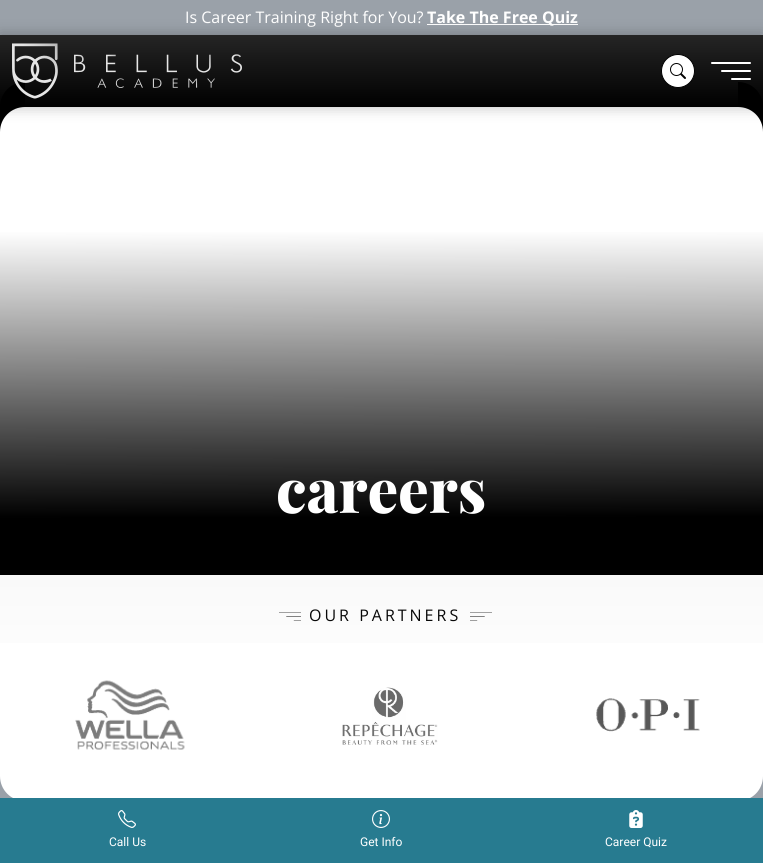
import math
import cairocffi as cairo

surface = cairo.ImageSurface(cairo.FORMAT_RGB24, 763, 863)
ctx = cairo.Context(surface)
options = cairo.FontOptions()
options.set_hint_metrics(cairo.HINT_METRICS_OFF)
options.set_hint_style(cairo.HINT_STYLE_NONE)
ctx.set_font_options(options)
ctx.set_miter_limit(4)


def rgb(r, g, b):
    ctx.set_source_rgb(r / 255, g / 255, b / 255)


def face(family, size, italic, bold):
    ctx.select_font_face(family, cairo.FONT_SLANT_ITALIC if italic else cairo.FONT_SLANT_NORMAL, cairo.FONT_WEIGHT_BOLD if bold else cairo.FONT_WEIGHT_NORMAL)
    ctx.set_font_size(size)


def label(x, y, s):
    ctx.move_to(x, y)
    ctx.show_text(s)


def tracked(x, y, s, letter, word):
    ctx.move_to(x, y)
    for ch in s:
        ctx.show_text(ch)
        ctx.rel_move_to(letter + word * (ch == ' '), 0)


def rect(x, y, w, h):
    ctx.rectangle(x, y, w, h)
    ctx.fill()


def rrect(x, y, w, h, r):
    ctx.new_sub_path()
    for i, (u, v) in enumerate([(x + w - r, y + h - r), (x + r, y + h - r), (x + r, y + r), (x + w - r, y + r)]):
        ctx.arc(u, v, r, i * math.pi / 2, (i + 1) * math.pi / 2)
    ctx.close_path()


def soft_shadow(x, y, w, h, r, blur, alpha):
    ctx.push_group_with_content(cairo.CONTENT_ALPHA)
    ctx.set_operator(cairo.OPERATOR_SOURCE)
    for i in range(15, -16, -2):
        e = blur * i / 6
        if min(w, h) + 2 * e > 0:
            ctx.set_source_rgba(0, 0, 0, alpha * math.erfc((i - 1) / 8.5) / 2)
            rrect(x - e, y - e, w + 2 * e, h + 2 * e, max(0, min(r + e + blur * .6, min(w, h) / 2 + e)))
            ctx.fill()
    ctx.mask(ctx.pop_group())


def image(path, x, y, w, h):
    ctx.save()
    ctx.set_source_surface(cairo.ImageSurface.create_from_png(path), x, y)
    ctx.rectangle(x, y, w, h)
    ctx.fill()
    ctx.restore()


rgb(255, 255, 255)
ctx.paint()
rgb(154, 161, 169)
rect(0, 0, 763, 35)
face('Open Sans', 16, 0, 0)
rgb(255, 255, 255)
label(185, 23, 'Is Career Training Right for You?')
rect(427, 24, 151, 1)
face('Open Sans', 16, 0, 1)
label(427, 23, 'Take The Free Quiz')
rgb(0, 0, 0)
soft_shadow(0, 35, 763, 72, 0, 7.5, 0.25)
gradient = cairo.LinearGradient(382, 107, 382, 35)
gradient.add_color_stop_rgba(0, 0, 0, 0, 1)
gradient.add_color_stop_rgba(1, 0.145, 0.145, 0.145, 1)
ctx.set_source(gradient)
rect(0, 35, 763, 72)
rgb(0, 0, 0)
ctx.new_path()
ctx.move_to(25, 82)
ctx.curve_to(11, 82, 0, 93, 0, 107)
ctx.line_to(0, 132)
ctx.curve_to(0, 118, 11, 107, 25, 107)
ctx.close_path()
ctx.fill()
image('image0.png', 12, 43, 230, 56)
rgb(255, 255, 255)
ctx.arc(678, 71, 16.5, 0, 2 * math.pi)
ctx.fill_preserve()
rgb(0, 0, 0)
ctx.set_line_width(1)
ctx.stroke()
image('image1.png', 670, 63, 16, 16)
rgb(255, 255, 255)
rrect(711, 62, 40, 2, 1)
ctx.fill()
rrect(721, 70, 30, 2, 1)
ctx.fill()
rrect(731, 78, 20, 2, 1)
ctx.fill()
rgb(0, 0, 0)
ctx.new_path()
ctx.move_to(738, 82)
ctx.line_to(738, 107)
ctx.curve_to(752, 107, 763, 118, 763, 132)
ctx.line_to(763, 107)
ctx.curve_to(763, 93, 752, 82, 738, 82)
ctx.close_path()
ctx.fill()
gradient = cairo.LinearGradient(381, 0, 382, 575)
gradient.add_color_stop_rgba(0, 0.102, 0.102, 0.102, 1)
gradient.add_color_stop_rgba(0.1, 1, 1, 1, 1)
gradient.add_color_stop_rgba(0.4, 1, 1, 1, 1)
gradient.add_color_stop_rgba(0.9, 0, 0, 0, 1)
ctx.set_source(gradient)
rect(0, 232, 763, 343)
face('Playfair Display ExtraBold', 61, 0, 0)
rgb(255, 255, 255)
label(276, 513, 'careers')
gradient = cairo.LinearGradient(382, 575, 382, 807)
gradient.add_color_stop_rgba(0, 0.976, 0.976, 0.976, 1)
gradient.add_color_stop_rgba(0.5, 1, 1, 1, 1)
ctx.set_source(gradient)
rect(0, 575, 763, 68)
image('image2.png', 279, 612, 22, 9)
face('Open Sans', 16, 0, 0)
rgb(8, 8, 8)
tracked(309, 621, 'OUR PARTNERS', 3, 0)
image('image3.png', 470, 612, 22, 9)
image('image4.png', 75, 680, 110, 70)
image('image5.png', 342, 687, 96, 58)
image('image6.png', 596, 698, 104, 34)
rgb(154, 161, 169)
ctx.new_path()
ctx.move_to(0, 776)
ctx.line_to(0, 801)
ctx.curve_to(0, 815, 11, 826, 25, 826)
ctx.line_to(25, 801)
ctx.curve_to(11, 801, 0, 790, 0, 776)
ctx.close_path()
ctx.fill()
ctx.new_path()
ctx.move_to(738, 801)
ctx.line_to(738, 826)
ctx.curve_to(752, 826, 763, 815, 763, 801)
ctx.line_to(763, 776)
ctx.curve_to(763, 790, 752, 801, 738, 801)
ctx.close_path()
ctx.fill()
rgb(39, 123, 144)
rect(0, 798, 763, 65)
image('image7.png', 118, 810, 18, 18)
face('Roboto', 12, 0, 0)
rgb(255, 255, 255)
label(109, 846, 'Call Us')
image('image8.png', 372, 810, 18, 18)
label(360, 846, 'Get Info')
image('image9.png', 629, 810, 14, 18)
label(605, 846, 'Career Quiz')
surface.write_to_png('render.png')
